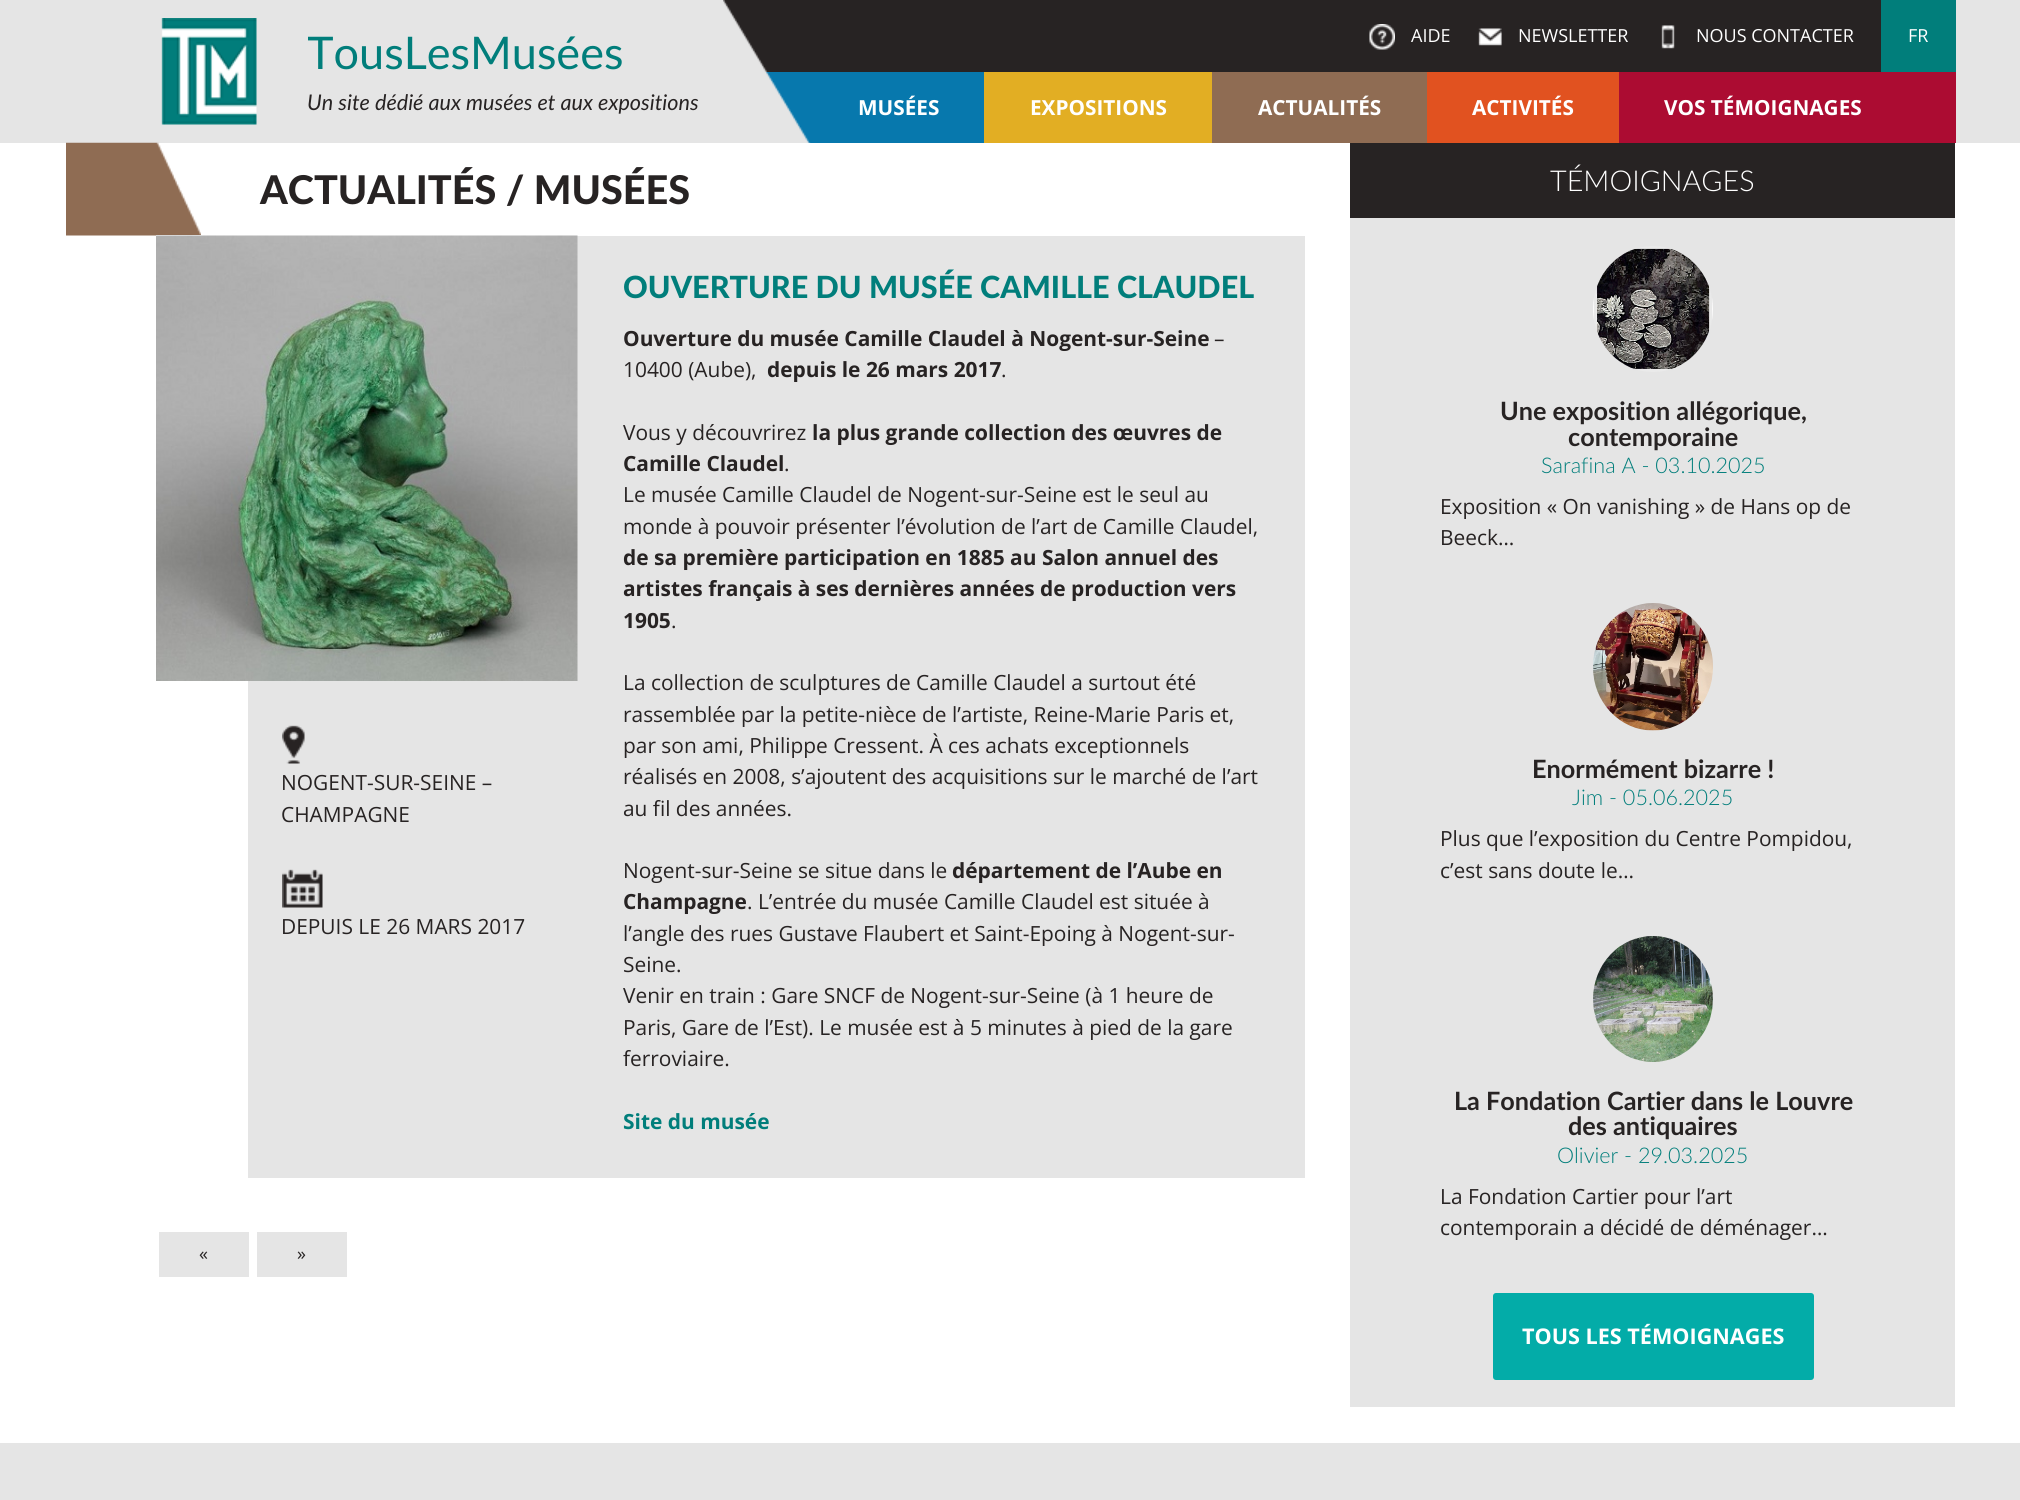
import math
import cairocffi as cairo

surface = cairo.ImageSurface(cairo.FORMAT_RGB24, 2020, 1500)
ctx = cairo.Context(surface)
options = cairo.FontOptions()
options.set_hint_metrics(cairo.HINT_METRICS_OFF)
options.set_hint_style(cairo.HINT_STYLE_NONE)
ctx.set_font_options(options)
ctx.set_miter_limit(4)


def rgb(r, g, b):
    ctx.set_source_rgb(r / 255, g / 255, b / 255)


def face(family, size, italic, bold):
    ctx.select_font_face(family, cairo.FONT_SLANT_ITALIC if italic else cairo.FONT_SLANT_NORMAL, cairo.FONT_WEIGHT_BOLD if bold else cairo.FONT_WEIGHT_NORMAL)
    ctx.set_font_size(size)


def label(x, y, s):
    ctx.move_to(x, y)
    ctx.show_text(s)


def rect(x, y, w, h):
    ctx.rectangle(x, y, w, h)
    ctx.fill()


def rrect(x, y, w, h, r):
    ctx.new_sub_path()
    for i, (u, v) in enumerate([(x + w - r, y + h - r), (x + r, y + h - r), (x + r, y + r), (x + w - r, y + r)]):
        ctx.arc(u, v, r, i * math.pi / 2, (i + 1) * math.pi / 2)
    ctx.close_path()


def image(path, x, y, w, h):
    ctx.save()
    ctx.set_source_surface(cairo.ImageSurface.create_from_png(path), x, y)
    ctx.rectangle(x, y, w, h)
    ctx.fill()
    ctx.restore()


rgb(229, 229, 229)
ctx.paint()
image('image0.png', 161, 18, 96, 107)
ctx.save()
ctx.rectangle(308, 18, 415, 68)
ctx.clip()
face('Lato', 45, 0, 0)
rgb(1, 126, 123)
label(307, 69, 'TousLesMusées')
ctx.restore()
face('Lato', 21.6, 1, 0)
rgb(39, 35, 35)
label(307, 110, 'Un site dédié aux musées et aux expositions')
rect(723, 0, 1158, 72)
rgb(7, 120, 173)
rect(764, 72, 220, 71)
image('image1.png', 723, 0, 88, 143)
image('image2.png', 1369, 24, 26, 26)
face('Open Sans', 18, 0, 0)
rgb(255, 255, 255)
label(1411, 42, 'AIDE')
image('image3.png', 1478, 28, 24, 18)
label(1518, 42, 'NEWSLETTER')
image('image4.png', 1661, 25, 14, 24)
label(1696, 42, 'NOUS CONTACTER')
rgb(1, 126, 123)
rect(1881, 0, 75, 72)
rgb(255, 255, 255)
label(1908, 42, 'FR')
face('Open Sans', 20.75, 0, 1)
label(858, 115, 'MUSÉES')
rgb(226, 174, 35)
rect(984, 72, 228, 71)
rgb(255, 255, 255)
label(1030, 115, 'EXPOSITIONS')
rgb(143, 108, 83)
rect(1212, 72, 215, 71)
rgb(255, 255, 255)
label(1258, 115, 'ACTUALITÉS')
rgb(225, 82, 32)
rect(1427, 72, 192, 71)
rgb(255, 255, 255)
label(1472, 115, 'ACTIVITÉS')
rgb(172, 12, 50)
rect(1619, 72, 337, 71)
rgb(255, 255, 255)
label(1664, 115, 'VOS TÉMOIGNAGES')
rect(0, 143, 2020, 1300)
image('image5.png', 66, 142, 135, 94)
face('Lato Black', 39.6, 0, 0)
rgb(39, 35, 35)
label(260, 204, 'ACTUALITÉS / MUSÉES')
rgb(229, 229, 229)
rect(248, 236, 1057, 942)
rgb(255, 255, 255)
rect(156, 235, 45, 1)
image('image6.png', 156, 235, 422, 446)
image('image7.png', 282, 725, 23, 39)
face('Open Sans', 20.9, 0, 0)
rgb(39, 35, 35)
label(281, 790, 'NOGENT-SUR-SEINE –')
label(281, 822, 'CHAMPAGNE')
image('image8.png', 282, 869, 41, 39)
label(281, 934, 'DEPUIS LE 26 MARS 2017')
face('Lato Black', 30.6, 0, 0)
rgb(1, 126, 123)
label(623, 298, 'OUVERTURE DU MUSÉE CAMILLE CLAUDEL')
face('Open Sans', 20.9, 0, 1)
rgb(39, 35, 35)
label(623, 346, 'Ouverture du musée Camille Claudel à Nogent-sur-Seine')
face('Open Sans', 20.9, 0, 0)
label(1214, 346, '–')
label(623, 377, '10400 (Aube),')
face('Open Sans', 20.9, 0, 1)
label(767, 377, 'depuis le 26 mars 2017')
face('Open Sans', 20.9, 0, 0)
label(1001, 377, '.')
label(623, 440, 'Vous y découvrirez')
face('Open Sans', 20.9, 0, 1)
label(812, 440, 'la plus grande collection des œuvres de')
label(623, 471, 'Camille Claudel')
face('Open Sans', 20.9, 0, 0)
label(784, 471, '.')
label(623, 502, 'Le musée Camille Claudel de Nogent-sur-Seine est le seul au')
label(623, 534, 'monde à pouvoir présenter l’évolution de l’art de Camille Claudel,')
face('Open Sans', 20.9, 0, 1)
label(623, 565, 'de sa première participation en 1885 au Salon annuel des')
label(623, 596, 'artistes français à ses dernières années de production vers')
label(623, 628, '1905')
face('Open Sans', 20.9, 0, 0)
label(671, 628, '.')
label(623, 690, 'La collection de sculptures de Camille Claudel a surtout été')
label(623, 722, 'rassemblée par la petite-nièce de l’artiste, Reine-Marie Paris et,')
label(623, 753, 'par son ami, Philippe Cressent. À ces achats exceptionnels')
label(623, 784, 'réalisés en 2008, s’ajoutent des acquisitions sur le marché de l’art')
label(623, 816, 'au fil des années.')
label(623, 878, 'Nogent-sur-Seine se situe dans le')
face('Open Sans', 20.9, 0, 1)
label(952, 878, 'département de l’Aube en')
label(623, 909, 'Champagne')
face('Open Sans', 20.9, 0, 0)
label(747, 909, '. L’entrée du musée Camille Claudel est située à')
label(623, 941, 'l’angle des rues Gustave Flaubert et Saint-Epoing à Nogent-sur-')
label(623, 972, 'Seine.')
label(623, 1003, 'Venir en train : Gare SNCF de Nogent-sur-Seine (à 1 heure de')
label(623, 1035, 'Paris, Gare de l’Est). Le musée est à 5 minutes à pied de la gare')
label(623, 1066, 'ferroviaire.')
face('Open Sans', 20.9, 0, 1)
rgb(1, 126, 123)
label(623, 1129, 'Site du musée')
rgb(229, 229, 229)
rect(159, 1232, 90, 45)
face('Open Sans', 18, 0, 0)
rgb(39, 35, 35)
label(199, 1260, '«')
rgb(229, 229, 229)
rect(257, 1232, 90, 45)
rgb(39, 35, 35)
label(297, 1260, '»')
rgb(229, 229, 229)
rect(1350, 218, 605, 1189)
rgb(39, 35, 35)
rect(1350, 143, 605, 75)
face('Lato Light', 28.75, 0, 0)
rgb(255, 255, 255)
label(1550, 191, 'TÉMOIGNAGES')
image('image9.png', 1593, 246, 120, 126)
face('Lato', 25.25, 0, 1)
rgb(39, 35, 35)
label(1500, 420, 'Une exposition allégorique,')
label(1568, 446, 'contemporaine')
face('Lato Light', 21.6, 0, 0)
rgb(1, 126, 123)
label(1541, 473, 'Sarafina A - 03.10.2025')
face('Open Sans', 20.9, 0, 0)
rgb(39, 35, 35)
label(1440, 514, 'Exposition « On vanishing » de Hans op de')
label(1440, 545, 'Beeck…')
image('image10.png', 1593, 603, 120, 128)
face('Lato', 25.25, 0, 1)
label(1532, 778, 'Enormément bizarre !')
face('Lato Light', 21.6, 0, 0)
rgb(1, 126, 123)
label(1572, 805, 'Jim - 05.06.2025')
face('Open Sans', 20.9, 0, 0)
rgb(39, 35, 35)
label(1440, 846, 'Plus que l’exposition du Centre Pompidou,')
label(1440, 878, 'c’est sans doute le…')
image('image11.png', 1593, 936, 120, 126)
face('Lato', 25.25, 0, 1)
label(1454, 1110, 'La Fondation Cartier dans le Louvre')
label(1568, 1135, 'des antiquaires')
face('Lato Light', 21.6, 0, 0)
rgb(1, 126, 123)
label(1557, 1163, 'Olivier - 29.03.2025')
face('Open Sans', 20.9, 0, 0)
rgb(39, 35, 35)
label(1440, 1204, 'La Fondation Cartier pour l’art')
label(1440, 1235, 'contemporain a décidé de déménager…')
rgb(3, 172, 168)
rrect(1493, 1293, 321, 87, 3)
ctx.fill()
face('Open Sans', 21.6, 0, 1)
rgb(255, 255, 255)
label(1522, 1344, 'TOUS LES TÉMOIGNAGES')
surface.write_to_png('render.png')
